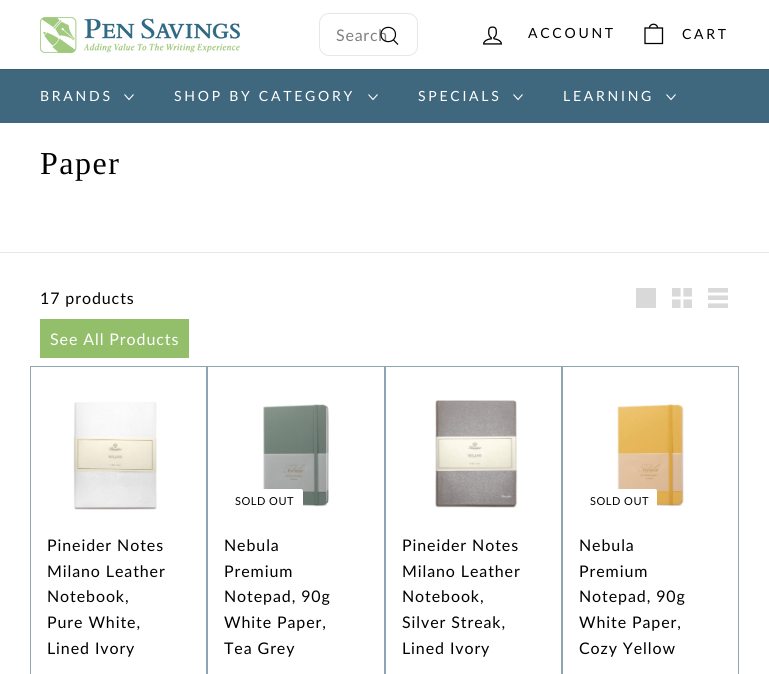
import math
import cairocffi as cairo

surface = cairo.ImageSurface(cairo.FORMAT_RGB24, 769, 674)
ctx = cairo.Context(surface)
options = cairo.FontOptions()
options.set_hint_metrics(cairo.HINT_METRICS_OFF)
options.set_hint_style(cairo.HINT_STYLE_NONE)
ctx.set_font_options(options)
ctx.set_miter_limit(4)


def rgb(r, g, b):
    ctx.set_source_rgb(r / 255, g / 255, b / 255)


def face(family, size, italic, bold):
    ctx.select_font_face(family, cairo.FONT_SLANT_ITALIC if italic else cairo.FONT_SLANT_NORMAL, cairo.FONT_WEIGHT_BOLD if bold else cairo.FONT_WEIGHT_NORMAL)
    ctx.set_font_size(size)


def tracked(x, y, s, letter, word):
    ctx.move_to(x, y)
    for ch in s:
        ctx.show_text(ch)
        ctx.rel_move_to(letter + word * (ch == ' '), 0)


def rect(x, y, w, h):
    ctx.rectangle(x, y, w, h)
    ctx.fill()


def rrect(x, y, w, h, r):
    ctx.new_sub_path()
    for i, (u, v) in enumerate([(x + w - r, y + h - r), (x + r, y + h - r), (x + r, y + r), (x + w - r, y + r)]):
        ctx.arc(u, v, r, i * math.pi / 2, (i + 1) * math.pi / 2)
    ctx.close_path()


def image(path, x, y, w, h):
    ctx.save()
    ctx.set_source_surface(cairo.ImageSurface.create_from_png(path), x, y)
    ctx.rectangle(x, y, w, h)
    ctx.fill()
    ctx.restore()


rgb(255, 255, 255)
ctx.paint()
image('image0.png', 40, 17, 200, 36)
rrect(319.5, 13.5, 98, 42, 9.5)
rgb(232, 232, 225)
ctx.set_line_width(1)
ctx.stroke()
face('Lato', 16, 0, 0)
rgb(128, 128, 128)
tracked(336, 41, 'Search', 0.75, 0)
ctx.new_path()
ctx.move_to(395.5, 34.5)
ctx.curve_to(395.5, 44, 381, 44, 381, 34.5)
ctx.curve_to(381, 25, 395.5, 25, 395.5, 34.5)
ctx.close_path()
ctx.move_to(398, 44.5)
ctx.line_to(393.5, 40)
rgb(0, 0, 0)
ctx.set_line_width(1.2)
ctx.stroke()
image('image1.png', 483, 26, 19, 19)
face('Lato', 14, 0, 0)
tracked(528, 38, 'ACCOUNT', 2.75, 0)
ctx.new_path()
ctx.move_to(649.5, 28)
ctx.curve_to(649.5, 23, 657.5, 23, 657.5, 28)
ctx.move_to(645, 28)
ctx.line_to(662.5, 28)
ctx.line_to(662.5, 43.5)
ctx.line_to(645, 43.5)
ctx.close_path()
ctx.set_line_width(1.3)
ctx.stroke()
tracked(682, 39, 'CART', 2.75, 0)
rgb(63, 104, 126)
rect(0, 70, 769, 53)
rgb(57, 94, 113)
rect(0, 69, 769, 1)
rgb(255, 255, 255)
tracked(40, 101, 'BRANDS', 2.75, 0)
ctx.new_path()
ctx.move_to(124.5, 94.5)
ctx.line_to(129, 99.5)
ctx.line_to(133.5, 94.5)
ctx.set_line_width(1.1)
ctx.stroke()
tracked(174, 101, 'SHOP BY CATEGORY', 2.75, 0)
ctx.new_path()
ctx.move_to(368.5, 94.5)
ctx.line_to(373, 99.5)
ctx.line_to(377.5, 94.5)
ctx.stroke()
tracked(418, 101, 'SPECIALS', 2.75, 0)
ctx.new_path()
ctx.move_to(513.5, 94.5)
ctx.line_to(518, 99.5)
ctx.line_to(522.5, 94.5)
ctx.stroke()
tracked(563, 101, 'LEARNING', 2.75, 0)
ctx.new_path()
ctx.move_to(666.5, 94.5)
ctx.line_to(671, 99.5)
ctx.line_to(675.5, 94.5)
ctx.stroke()
face('Liberation Serif', 32, 0, 0)
rgb(0, 0, 0)
tracked(40, 174, 'Paper', 1.5, 0)
rgb(232, 232, 225)
rect(0, 252, 769, 1)
face('Lato', 16, 0, 0)
rgb(0, 0, 0)
tracked(40, 304, '17 products', 0.9, 0)
rgb(217, 217, 217)
rect(636, 288, 20, 20)
image('image2.png', 672, 288, 20, 20)
image('image3.png', 708, 288, 20, 20)
rgb(147, 190, 106)
rect(40, 319, 149, 39)
rgb(255, 255, 255)
tracked(50, 345, 'See All Products', 0.9, 0)
ctx.rectangle(30.5, 366.5, 176, 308)
rgb(142, 165, 179)
ctx.set_line_width(1)
ctx.stroke()
image('image4.png', 73, 402, 84, 108)
rgb(0, 0, 0)
tracked(47, 551, 'Pineider Notes', 0.9, 0)
tracked(47, 577, 'Milano Leather', 0.9, 0)
tracked(47, 602, 'Notebook,', 0.9, 0)
tracked(47, 628, 'Pure White,', 0.9, 0)
tracked(47, 654, 'Lined Ivory', 0.9, 0)
ctx.rectangle(207.5, 366.5, 177, 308)
rgb(142, 165, 179)
ctx.stroke()
image('image5.png', 263, 404, 66, 103)
rgb(255, 255, 255)
ctx.new_path()
ctx.move_to(227, 489)
ctx.line_to(301, 489)
ctx.curve_to(302, 489, 303, 490, 303, 491)
ctx.line_to(303, 510)
ctx.curve_to(303, 511, 302, 512, 301, 512)
ctx.line_to(227, 512)
ctx.close_path()
ctx.fill()
face('Lato', 11, 0, 0)
rgb(0, 0, 0)
tracked(235, 505, 'SOLD OUT', 0.5, 0)
face('Lato', 16, 0, 0)
tracked(224, 551, 'Nebula', 0.9, 0)
tracked(224, 577, 'Premium', 0.9, 0)
tracked(224, 602, 'Notepad, 90g', 0.9, 0)
tracked(224, 628, 'White Paper,', 0.9, 0)
tracked(224, 654, 'Tea Grey', 0.9, 0)
ctx.rectangle(385.5, 366.5, 176, 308)
rgb(142, 165, 179)
ctx.stroke()
image('image6.png', 435, 400, 83, 108)
rgb(0, 0, 0)
tracked(402, 551, 'Pineider Notes', 0.9, 0)
tracked(402, 577, 'Milano Leather', 0.9, 0)
tracked(402, 602, 'Notebook,', 0.9, 0)
tracked(402, 628, 'Silver Streak,', 0.9, 0)
tracked(402, 654, 'Lined Ivory', 0.9, 0)
ctx.rectangle(562.5, 366.5, 176, 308)
rgb(142, 165, 179)
ctx.stroke()
image('image7.png', 617, 404, 67, 102)
rgb(255, 255, 255)
ctx.new_path()
ctx.move_to(582, 489)
ctx.line_to(655, 489)
ctx.curve_to(656, 489, 657, 490, 657, 491)
ctx.line_to(657, 510)
ctx.curve_to(657, 511, 656, 512, 655, 512)
ctx.line_to(582, 512)
ctx.close_path()
ctx.fill()
face('Lato', 11, 0, 0)
rgb(0, 0, 0)
tracked(590, 505, 'SOLD OUT', 0.5, 0)
face('Lato', 16, 0, 0)
tracked(579, 551, 'Nebula', 0.9, 0)
tracked(579, 577, 'Premium', 0.9, 0)
tracked(579, 602, 'Notepad, 90g', 0.9, 0)
tracked(579, 628, 'White Paper,', 0.9, 0)
tracked(579, 654, 'Cozy Yellow', 0.9, 0)
surface.write_to_png('render.png')
